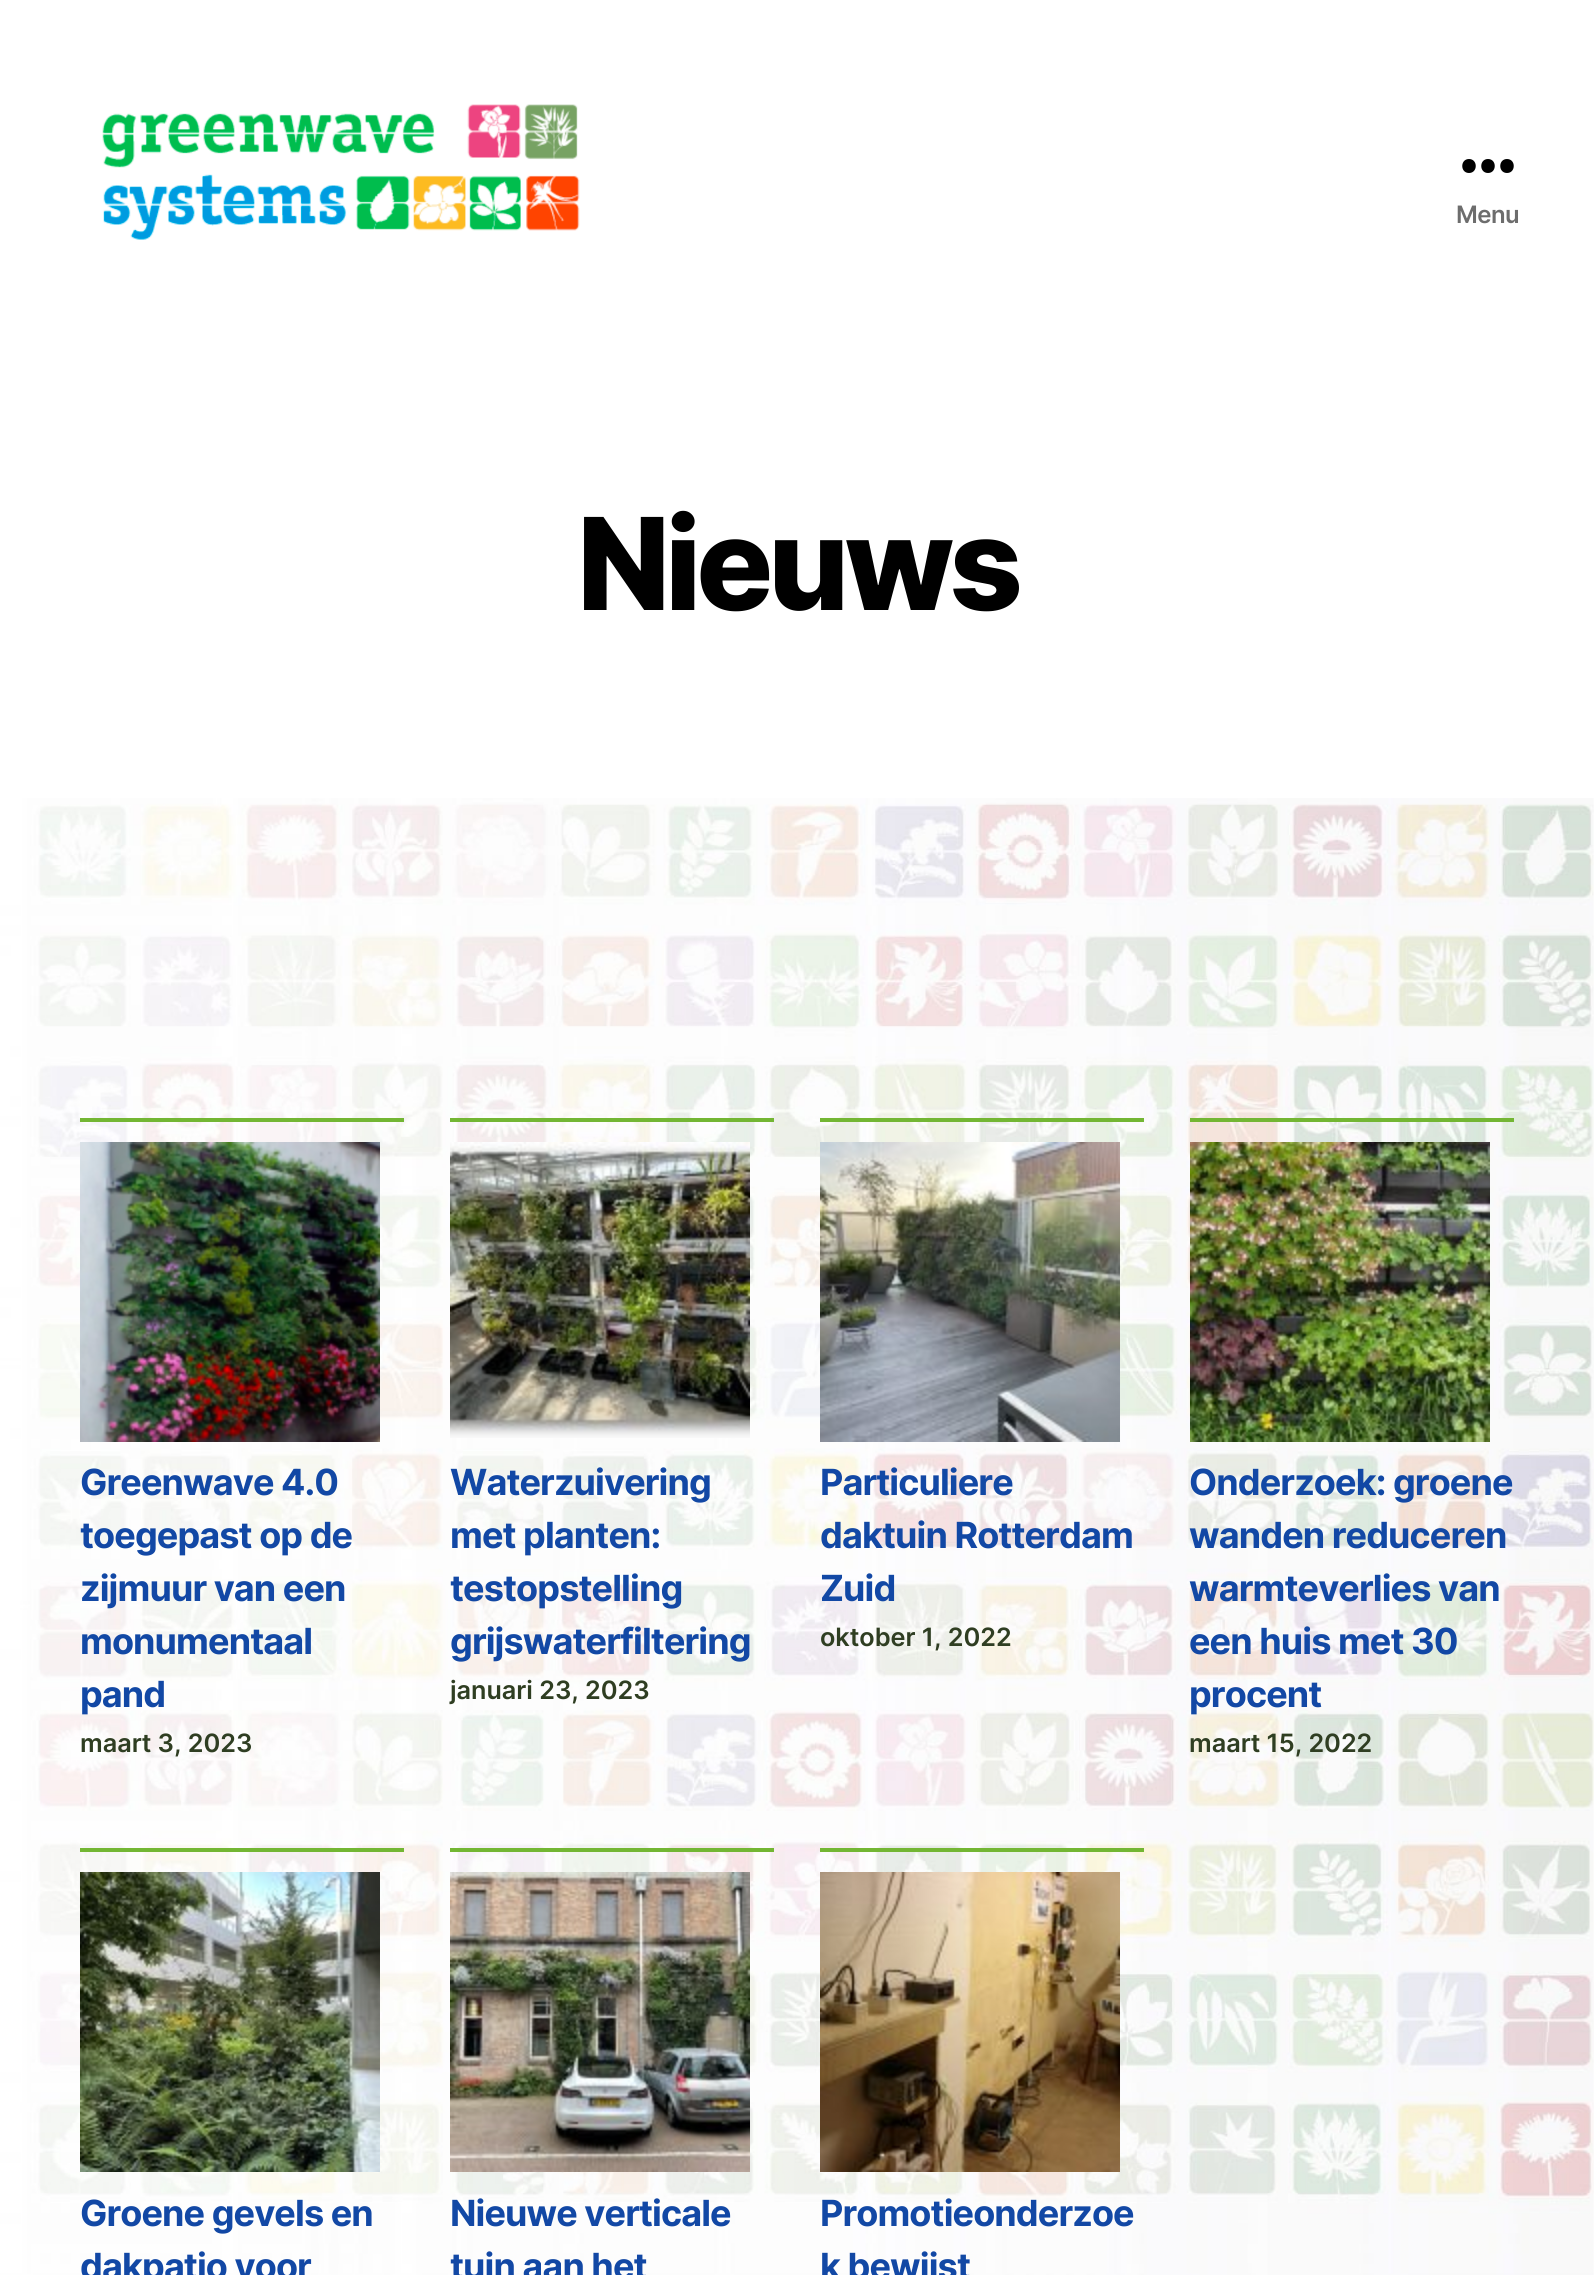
import math
import cairocffi as cairo

surface = cairo.ImageSurface(cairo.FORMAT_RGB24, 1594, 2275)
ctx = cairo.Context(surface)
options = cairo.FontOptions()
options.set_hint_metrics(cairo.HINT_METRICS_OFF)
options.set_hint_style(cairo.HINT_STYLE_NONE)
ctx.set_font_options(options)
ctx.set_miter_limit(4)


def rgb(r, g, b):
    ctx.set_source_rgb(r / 255, g / 255, b / 255)


def face(family, size, italic, bold):
    ctx.select_font_face(family, cairo.FONT_SLANT_ITALIC if italic else cairo.FONT_SLANT_NORMAL, cairo.FONT_WEIGHT_BOLD if bold else cairo.FONT_WEIGHT_NORMAL)
    ctx.set_font_size(size)


def label(x, y, s):
    ctx.move_to(x, y)
    ctx.show_text(s)


def tracked(x, y, s, letter, word):
    ctx.move_to(x, y)
    for ch in s:
        ctx.show_text(ch)
        ctx.rel_move_to(letter + word * (ch == ' '), 0)


def rect(x, y, w, h):
    ctx.rectangle(x, y, w, h)
    ctx.fill()


def image(path, x, y, w, h):
    ctx.save()
    ctx.set_source_surface(cairo.ImageSurface.create_from_png(path), x, y)
    ctx.rectangle(x, y, w, h)
    ctx.fill()
    ctx.restore()


rgb(255, 255, 255)
ctx.paint()
image('image0.png', 0, 798, 1594, 1477)
image('image1.png', 102, 104, 478, 136)
rgb(0, 0, 0)
ctx.set_fill_rule(cairo.FILL_RULE_EVEN_ODD)
ctx.new_path()
ctx.move_to(1469, 173)
ctx.curve_to(1460, 173, 1460, 159, 1469, 159)
ctx.curve_to(1478, 159, 1478, 173, 1469, 173)
ctx.close_path()
ctx.move_to(1488, 173)
ctx.curve_to(1479, 173, 1479, 159, 1488, 159)
ctx.curve_to(1497, 159, 1497, 173, 1488, 173)
ctx.close_path()
ctx.move_to(1507, 173)
ctx.curve_to(1498, 173, 1498, 159, 1507, 159)
ctx.curve_to(1516, 159, 1516, 173, 1507, 173)
ctx.close_path()
ctx.fill()
face('Inter SemiBold', 24, 0, 0)
rgb(109, 109, 109)
tracked(1456, 223, 'Menu', -0.5, 0)
face('Inter ExtraBold', 128, 0, 0)
rgb(0, 0, 0)
tracked(577, 610, 'Nieuws', -5.25, 0)
rgb(115, 182, 51)
rect(80, 1118, 324, 4)
image('image2.png', 80, 1142, 300, 300)
face('Inter', 36, 0, 1)
rgb(18, 72, 165)
tracked(80, 1495, 'Greenwave 4.0', -0.9, 0)
tracked(80, 1548, 'toegepast op de', -0.9, 0)
tracked(80, 1601, 'zijmuur van een', -0.9, 0)
tracked(80, 1654, 'monumentaal', -0.9, 0)
tracked(80, 1707, 'pand', -0.9, 0)
face('Inter SemiBold', 25.25, 0, 0)
rgb(47, 62, 34)
label(80, 1752, 'maart 3, 2023')
rgb(115, 182, 51)
rect(450, 1118, 324, 4)
image('image3.png', 450, 1142, 300, 296)
face('Inter', 36, 0, 1)
rgb(18, 72, 165)
tracked(450, 1495, 'Waterzuivering', -0.9, 0)
tracked(450, 1548, 'met planten:', -0.9, 0)
tracked(450, 1601, 'testopstelling', -0.9, 0)
tracked(450, 1654, 'grijswaterfiltering', -0.9, 0)
face('Inter SemiBold', 25.25, 0, 0)
rgb(47, 62, 34)
label(450, 1699, 'januari 23, 2023')
rgb(115, 182, 51)
rect(820, 1118, 324, 4)
image('image4.png', 820, 1142, 300, 300)
face('Inter', 36, 0, 1)
rgb(18, 72, 165)
tracked(820, 1495, 'Particuliere', -0.9, 0)
tracked(820, 1548, 'daktuin Rotterdam', -0.9, 0)
tracked(820, 1601, 'Zuid', -0.9, 0)
face('Inter SemiBold', 25.25, 0, 0)
rgb(47, 62, 34)
label(820, 1646, 'oktober 1, 2022')
rgb(115, 182, 51)
rect(1190, 1118, 324, 4)
image('image5.png', 1190, 1142, 300, 300)
face('Inter', 36, 0, 1)
rgb(18, 72, 165)
tracked(1189, 1495, 'Onderzoek: groene', -0.9, 0)
tracked(1189, 1548, 'wanden reduceren', -0.9, 0)
tracked(1189, 1601, 'warmteverlies van', -0.9, 0)
tracked(1189, 1654, 'een huis met 30', -0.9, 0)
tracked(1189, 1707, 'procent', -0.9, 0)
face('Inter SemiBold', 25.25, 0, 0)
rgb(47, 62, 34)
label(1189, 1752, 'maart 15, 2022')
rgb(115, 182, 51)
rect(80, 1848, 324, 4)
image('image6.png', 80, 1872, 300, 300)
face('Inter', 36, 0, 1)
rgb(18, 72, 165)
tracked(80, 2226, 'Groene gevels en', -0.9, 0)
tracked(80, 2279, 'dakpatio voor', -0.9, 0)
rgb(115, 182, 51)
rect(450, 1848, 324, 4)
image('image7.png', 450, 1872, 300, 300)
rgb(18, 72, 165)
tracked(450, 2226, 'Nieuwe verticale', -0.9, 0)
tracked(450, 2279, 'tuin aan het', -0.9, 0)
rgb(115, 182, 51)
rect(820, 1848, 324, 4)
image('image8.png', 820, 1872, 300, 300)
rgb(18, 72, 165)
tracked(820, 2226, 'Promotieonderzoe', -0.9, 0)
tracked(820, 2279, 'k bewijst', -0.9, 0)
surface.write_to_png('render.png')
